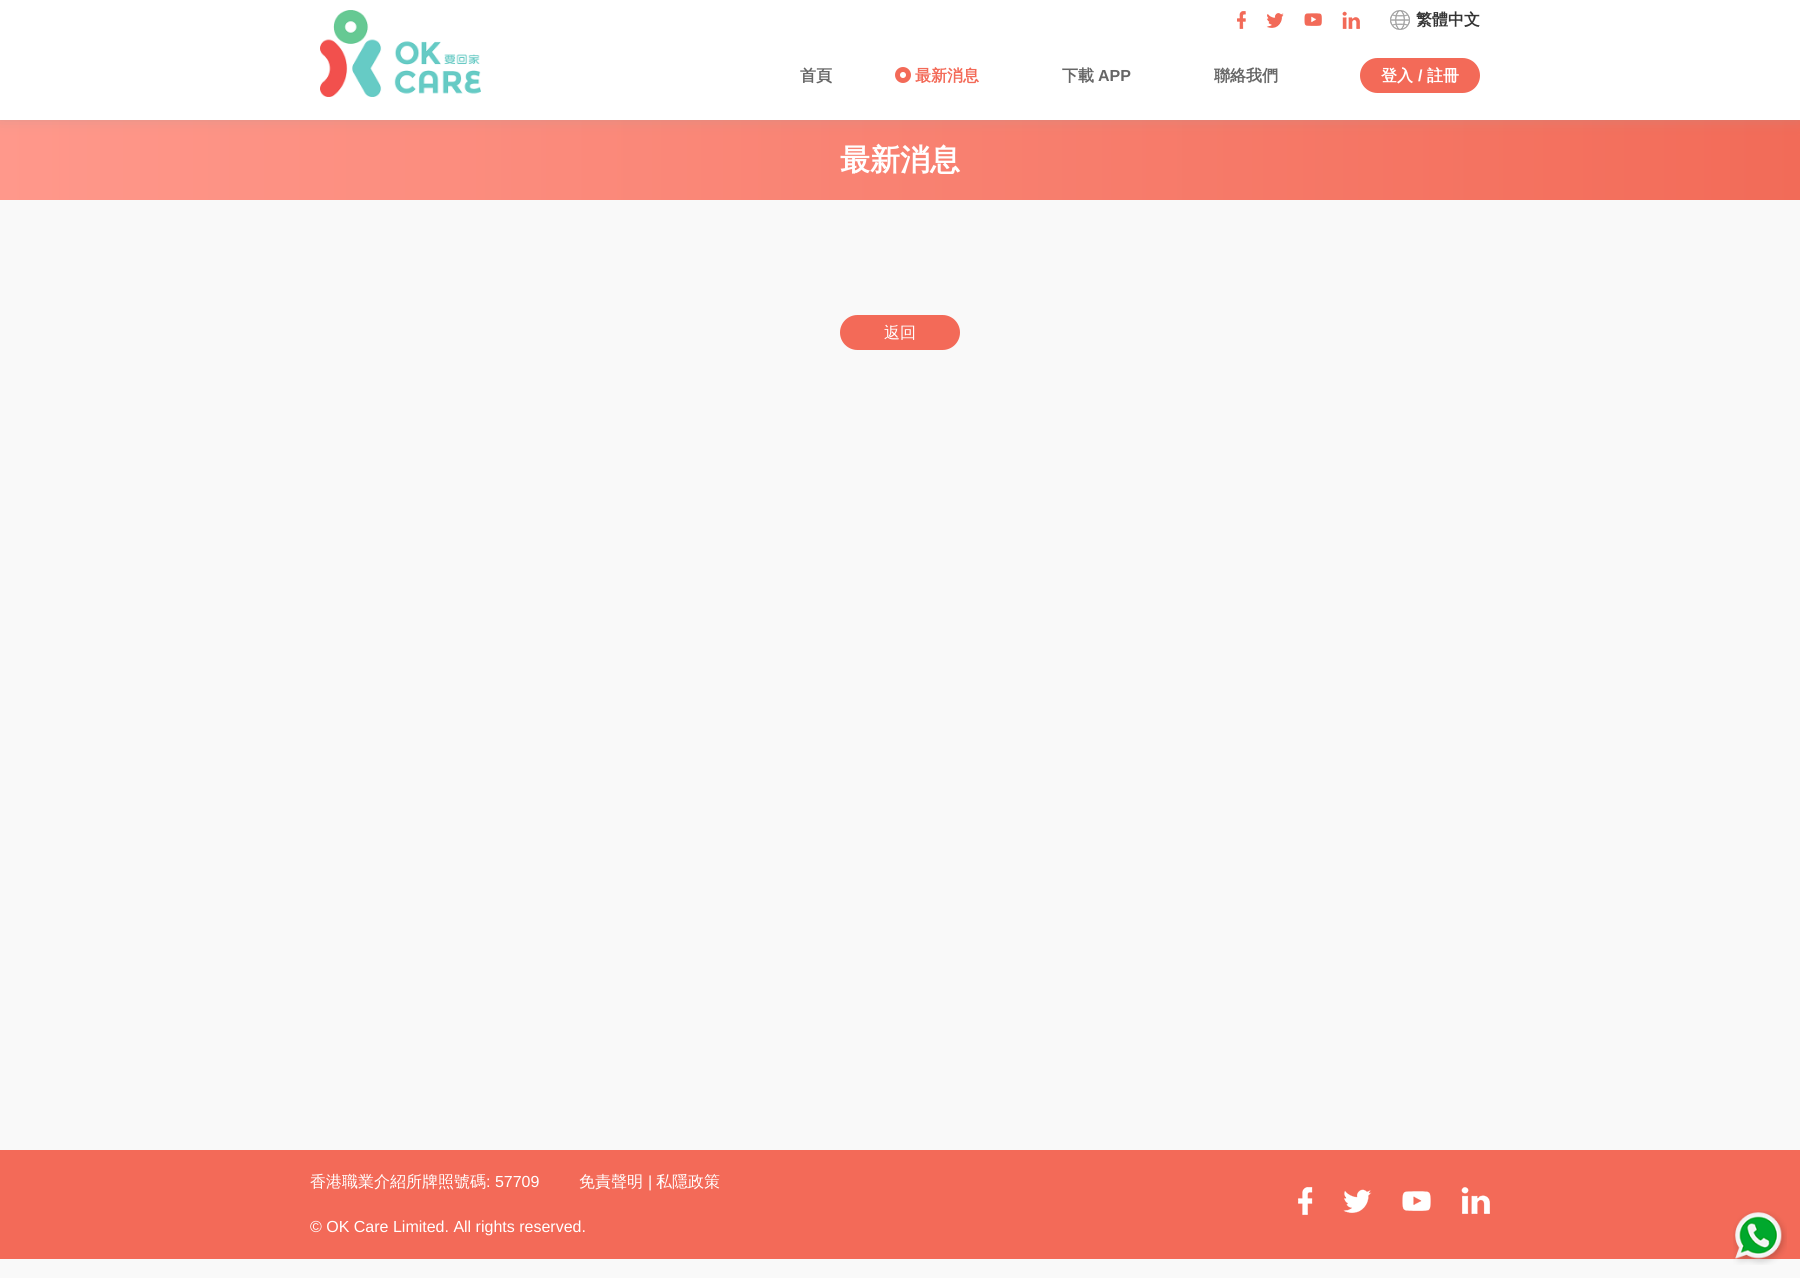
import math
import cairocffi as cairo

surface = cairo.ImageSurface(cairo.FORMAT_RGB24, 1800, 1278)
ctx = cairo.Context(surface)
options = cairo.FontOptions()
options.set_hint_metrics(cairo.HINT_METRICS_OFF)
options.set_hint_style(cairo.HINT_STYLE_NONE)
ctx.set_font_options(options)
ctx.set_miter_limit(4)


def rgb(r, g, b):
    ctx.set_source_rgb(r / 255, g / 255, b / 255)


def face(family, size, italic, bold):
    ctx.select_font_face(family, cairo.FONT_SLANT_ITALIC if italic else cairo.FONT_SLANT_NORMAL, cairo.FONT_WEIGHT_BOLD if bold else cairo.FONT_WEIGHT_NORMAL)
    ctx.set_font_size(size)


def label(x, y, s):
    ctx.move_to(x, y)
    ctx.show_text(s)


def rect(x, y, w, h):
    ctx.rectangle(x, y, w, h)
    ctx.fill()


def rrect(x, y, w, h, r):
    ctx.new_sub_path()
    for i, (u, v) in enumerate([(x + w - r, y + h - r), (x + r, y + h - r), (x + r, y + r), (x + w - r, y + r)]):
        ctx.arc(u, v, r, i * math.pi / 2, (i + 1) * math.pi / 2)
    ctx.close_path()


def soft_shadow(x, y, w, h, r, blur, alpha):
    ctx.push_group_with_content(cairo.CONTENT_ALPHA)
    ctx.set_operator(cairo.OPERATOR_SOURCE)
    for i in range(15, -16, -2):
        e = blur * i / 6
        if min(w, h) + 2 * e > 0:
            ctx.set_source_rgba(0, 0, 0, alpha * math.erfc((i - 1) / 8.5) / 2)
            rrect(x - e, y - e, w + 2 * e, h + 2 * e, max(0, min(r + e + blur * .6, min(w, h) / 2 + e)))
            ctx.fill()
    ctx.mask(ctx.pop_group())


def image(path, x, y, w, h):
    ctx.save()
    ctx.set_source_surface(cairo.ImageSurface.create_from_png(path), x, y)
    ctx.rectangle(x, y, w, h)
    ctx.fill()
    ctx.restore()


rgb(249, 249, 249)
ctx.paint()
gradient = cairo.LinearGradient(0, 160, 1800, 160)
gradient.add_color_stop_rgba(0, 1, 0.596, 0.545, 1)
gradient.add_color_stop_rgba(1, 0.949, 0.42, 0.345, 1)
ctx.set_source(gradient)
rect(0, 120, 1800, 80)
rgb(153, 153, 153)
soft_shadow(0, -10, 1800, 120, 0, 10, 1)
rgb(255, 255, 255)
rect(0, 0, 1800, 120)
image('image0.png', 320, 10, 161, 87)
image('image1.png', 1237, 11, 9, 18)
image('image2.png', 1266, 13, 18, 15)
image('image3.png', 1304, 13, 18, 13)
image('image4.png', 1342, 11, 18, 18)
image('image5.png', 1390, 10, 20, 20)
face('WenQuanYi Zen Hei', 16, 0, 1)
rgb(51, 51, 51)
label(1416, 25, '繁體中文')
rgb(102, 102, 102)
label(800, 81, '首頁')
ctx.new_path()
ctx.arc(903, 75, 5.5, 0, 2 * math.pi)
rgb(243, 106, 88)
ctx.set_line_width(5)
ctx.stroke()
label(915, 81, '最新消息')
rgb(102, 102, 102)
label(1062, 81, '下載')
face('Liberation Sans', 16, 0, 1)
label(1098, 81, 'APP')
face('WenQuanYi Zen Hei', 16, 0, 1)
label(1214, 81, '聯絡我們')
rgb(243, 106, 88)
rrect(1360, 58, 120, 35, 17.5)
ctx.fill()
rgb(255, 255, 255)
label(1381, 81, '登入')
face('Liberation Sans', 16, 0, 1)
label(1418, 81, '/')
face('WenQuanYi Zen Hei', 16, 0, 1)
label(1427, 81, '註冊')
face('WenQuanYi Zen Hei', 30, 0, 1)
label(840, 170, '最新消息')
rgb(243, 106, 88)
rrect(840, 315, 120, 35, 17.5)
ctx.fill()
face('WenQuanYi Zen Hei Medium', 16, 0, 0)
rgb(255, 255, 255)
label(884, 338, '返回')
rgb(243, 106, 88)
rect(0, 1150, 1800, 109)
rgb(255, 255, 255)
label(310, 1187, '香港職業介紹所牌照號碼')
face('Liberation Sans', 16, 0, 0)
label(486, 1187, ': 57709')
face('WenQuanYi Zen Hei Medium', 16, 0, 0)
label(579, 1187, '免責聲明')
face('Liberation Sans', 16, 0, 0)
label(648, 1187, '|')
face('WenQuanYi Zen Hei Medium', 16, 0, 0)
label(656, 1187, '私隱政策')
image('image6.png', 1298, 1187, 15, 28)
image('image7.png', 1343, 1189, 29, 24)
image('image8.png', 1402, 1191, 29, 20)
image('image9.png', 1461, 1187, 29, 27)
face('Liberation Sans', 16, 0, 0)
label(310, 1232, '© OK Care Limited. All rights reserved.')
image('image10.png', 1733, 1211, 54, 54)
surface.write_to_png('render.png')
